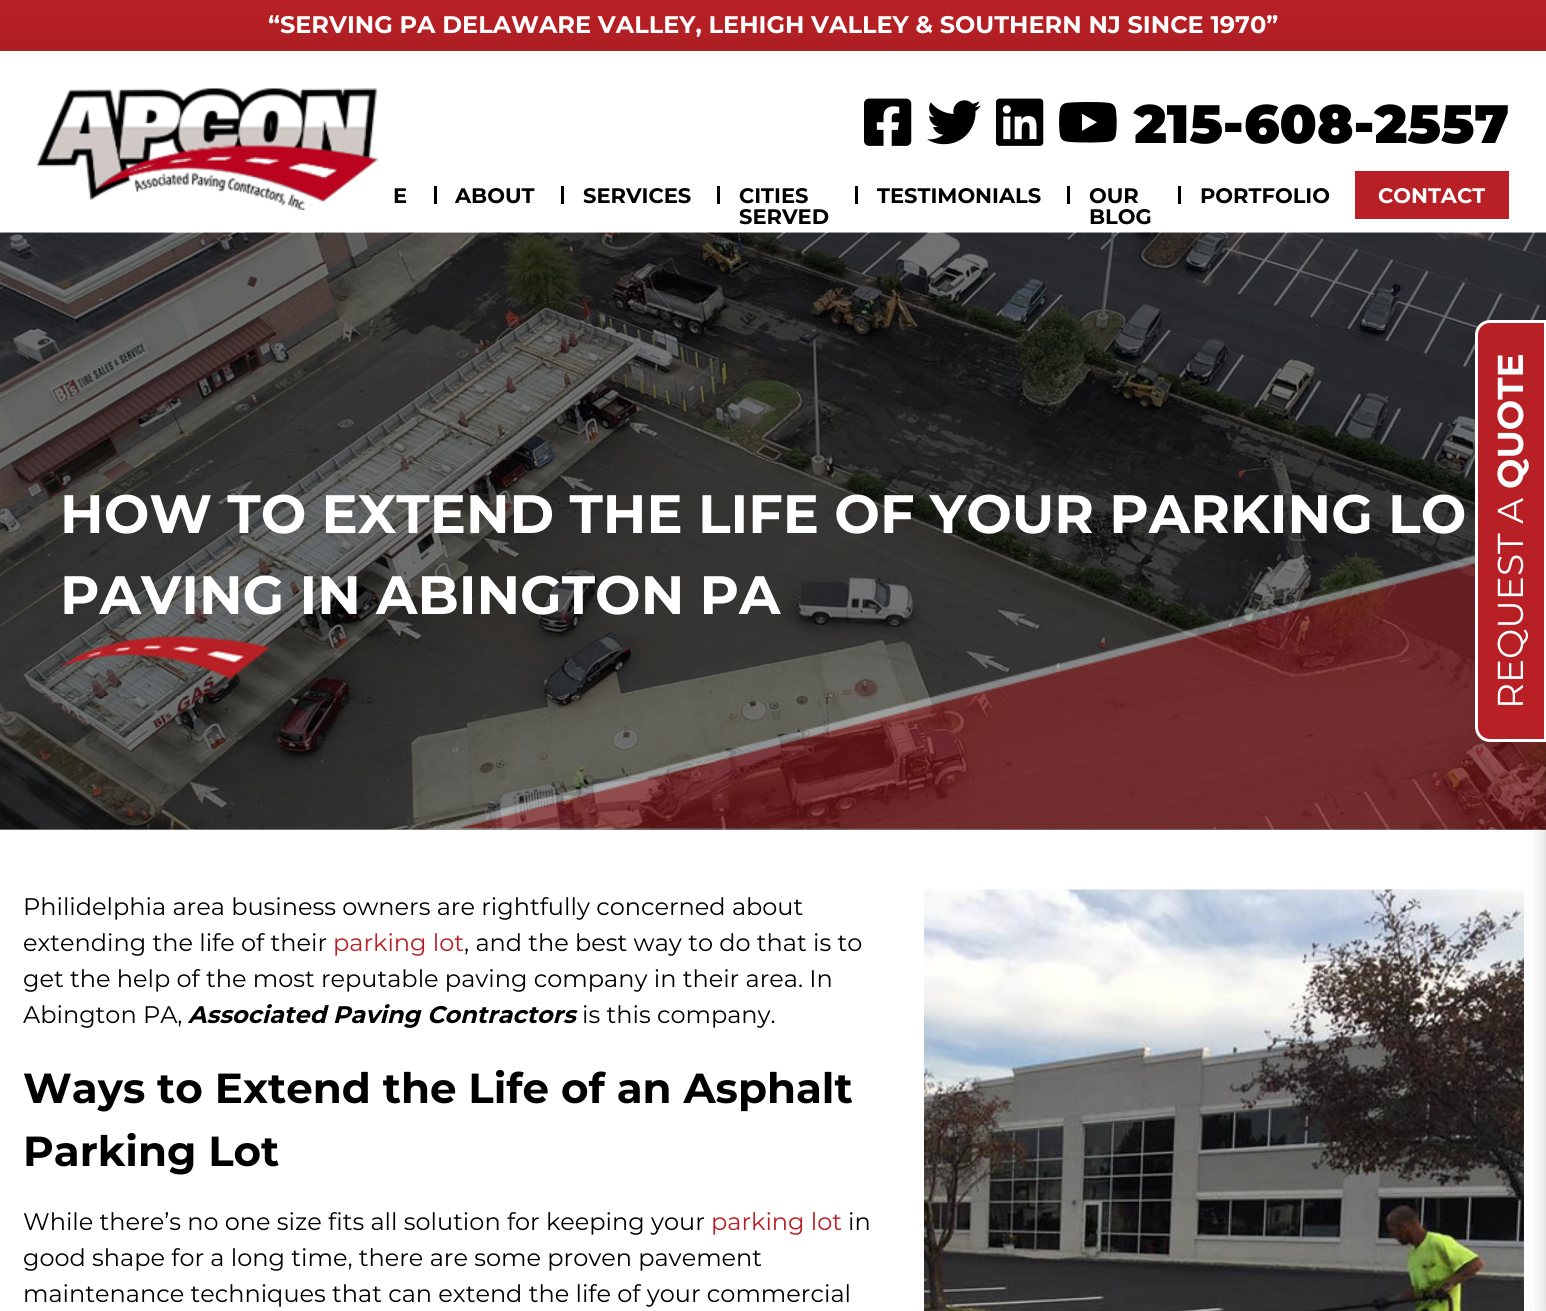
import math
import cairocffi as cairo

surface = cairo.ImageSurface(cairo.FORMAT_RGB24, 1546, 1311)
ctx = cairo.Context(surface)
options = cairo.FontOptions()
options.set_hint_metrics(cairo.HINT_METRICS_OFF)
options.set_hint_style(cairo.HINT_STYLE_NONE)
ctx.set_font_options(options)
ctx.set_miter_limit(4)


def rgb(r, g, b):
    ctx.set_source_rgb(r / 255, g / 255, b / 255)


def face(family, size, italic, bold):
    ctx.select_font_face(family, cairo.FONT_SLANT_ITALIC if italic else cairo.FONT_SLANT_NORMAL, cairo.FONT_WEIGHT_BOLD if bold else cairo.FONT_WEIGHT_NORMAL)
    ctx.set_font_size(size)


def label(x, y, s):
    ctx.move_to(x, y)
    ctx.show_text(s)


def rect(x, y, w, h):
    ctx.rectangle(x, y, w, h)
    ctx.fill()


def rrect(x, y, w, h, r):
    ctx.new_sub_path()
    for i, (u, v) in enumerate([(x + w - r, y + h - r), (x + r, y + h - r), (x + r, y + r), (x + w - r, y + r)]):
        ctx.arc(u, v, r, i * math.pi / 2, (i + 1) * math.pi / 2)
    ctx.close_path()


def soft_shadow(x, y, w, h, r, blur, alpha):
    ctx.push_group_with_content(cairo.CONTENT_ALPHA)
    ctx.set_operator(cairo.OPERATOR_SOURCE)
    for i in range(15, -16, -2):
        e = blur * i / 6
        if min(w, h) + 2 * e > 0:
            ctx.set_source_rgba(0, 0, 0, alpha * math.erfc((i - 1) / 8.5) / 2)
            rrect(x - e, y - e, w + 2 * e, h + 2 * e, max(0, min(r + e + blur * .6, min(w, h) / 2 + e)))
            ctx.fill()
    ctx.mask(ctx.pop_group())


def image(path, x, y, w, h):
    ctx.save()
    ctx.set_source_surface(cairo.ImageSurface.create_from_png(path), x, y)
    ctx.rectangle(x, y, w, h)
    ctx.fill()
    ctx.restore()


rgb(255, 255, 255)
ctx.paint()
rgb(184, 32, 37)
rect(0, 0, 1546, 51)
rgb(0, 0, 0)
soft_shadow(-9, 42, 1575, 210, 0, 21.5, 0.1)
face('Montserrat', 24, 0, 1)
rgb(255, 255, 255)
label(268, 33, '“SERVING PA DELAWARE VALLEY, LEHIGH VALLEY & SOUTHERN NJ SINCE 1970”')
rect(0, 51, 1546, 182)
image('image0.png', 37, 88, 341, 122)
image('image1.png', 864, 98, 48, 48)
image('image2.png', 927, 100, 54, 45)
image('image3.png', 996, 98, 48, 48)
image('image4.png', 1059, 102, 58, 41)
face('Montserrat Black', 54, 0, 0)
rgb(0, 0, 0)
label(1134, 143, '215-608-2557')
face('Montserrat', 21, 0, 1)
label(393, 203, 'E')
rect(434, 186, 3, 18)
label(455, 203, 'ABOUT')
rect(561, 186, 3, 18)
label(583, 203, 'SERVICES')
rect(717, 186, 3, 18)
label(739, 203, 'CITIES')
label(739, 224, 'SERVED')
rect(855, 186, 3, 18)
label(877, 203, 'TESTIMONIALS')
rect(1067, 186, 3, 18)
label(1089, 203, 'OUR')
label(1089, 224, 'BLOG')
rect(1178, 186, 3, 18)
label(1200, 203, 'PORTFOLIO')
rgb(184, 32, 37)
rect(1355, 171, 154, 48)
rgb(255, 255, 255)
label(1378, 203, 'CONTACT')
image('image5.png', 0, 232, 1546, 598)
ctx.set_source_rgba(0, 0, 0, 0.3)
rect(0, 233, 1546, 597)
image('image6.png', 424, 554, 1122, 276)
image('image8.png', 924, 889, 600, 422)
rgb(0, 0, 0)
soft_shadow(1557, 284, 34, 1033, 0, 15, 0.4)
image('image7.png', 60, 636, 209, 44)
face('Montserrat', 54, 0, 1)
rgb(255, 255, 255)
label(60, 533, 'HOW TO EXTEND THE LIFE OF YOUR PARKING LO')
label(60, 614, 'PAVING IN ABINGTON PA')
rgb(184, 32, 37)
ctx.new_path()
ctx.move_to(1475, 727)
ctx.line_to(1475, 335)
ctx.curve_to(1475, 327, 1482, 320, 1490, 320)
ctx.line_to(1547, 320)
ctx.line_to(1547, 742)
ctx.line_to(1490, 742)
ctx.curve_to(1482, 742, 1475, 735, 1475, 727)
ctx.close_path()
ctx.fill()
ctx.new_path()
ctx.move_to(1476.5, 727)
ctx.line_to(1476.5, 335)
ctx.curve_to(1476.5, 327.5, 1482.5, 321.5, 1490, 321.5)
ctx.line_to(1545.5, 321.5)
ctx.line_to(1545.5, 740.5)
ctx.line_to(1490, 740.5)
ctx.curve_to(1482.5, 740.5, 1476.5, 734.5, 1476.5, 727)
ctx.close_path()
rgb(255, 255, 255)
ctx.set_line_width(3)
ctx.stroke()
face('Montserrat', 36, 0, 1)
ctx.save()
ctx.translate(1523, 489)
ctx.rotate(-90 * math.pi / 180)
label(0, 0, 'QUOTE')
ctx.restore()
face('Montserrat', 36, 0, 0)
ctx.save()
ctx.translate(1523, 709)
ctx.rotate(-90 * math.pi / 180)
label(0, 0, 'REQUEST A')
ctx.restore()
face('Montserrat', 24, 0, 0)
rgb(0, 0, 0)
label(23, 915, 'Philidelphia area business owners are rightfully concerned about')
label(23, 951, 'extending the life of their')
rgb(184, 32, 37)
label(333, 951, 'parking lot')
rgb(0, 0, 0)
label(464, 951, ', and the best way to do that is to')
label(23, 987, 'get the help of the most reputable paving company in their area. In')
label(23, 1023, 'Abington PA,')
face('Montserrat', 24, 1, 1)
label(188, 1023, 'Associated Paving Contractors')
face('Montserrat', 24, 0, 0)
label(582, 1023, 'is this company.')
face('Montserrat', 42, 0, 1)
label(23, 1103, 'Ways to Extend the Life of an Asphalt')
label(23, 1166, 'Parking Lot')
face('Montserrat', 24, 0, 0)
label(23, 1230, 'While there’s no one size fits all solution for keeping your')
rgb(184, 32, 37)
label(711, 1230, 'parking lot')
rgb(0, 0, 0)
label(848, 1230, 'in')
label(23, 1266, 'good shape for a long time, there are some proven pavement')
label(23, 1302, 'maintenance techniques that can extend the life of your commercial')
surface.write_to_png('render.png')
